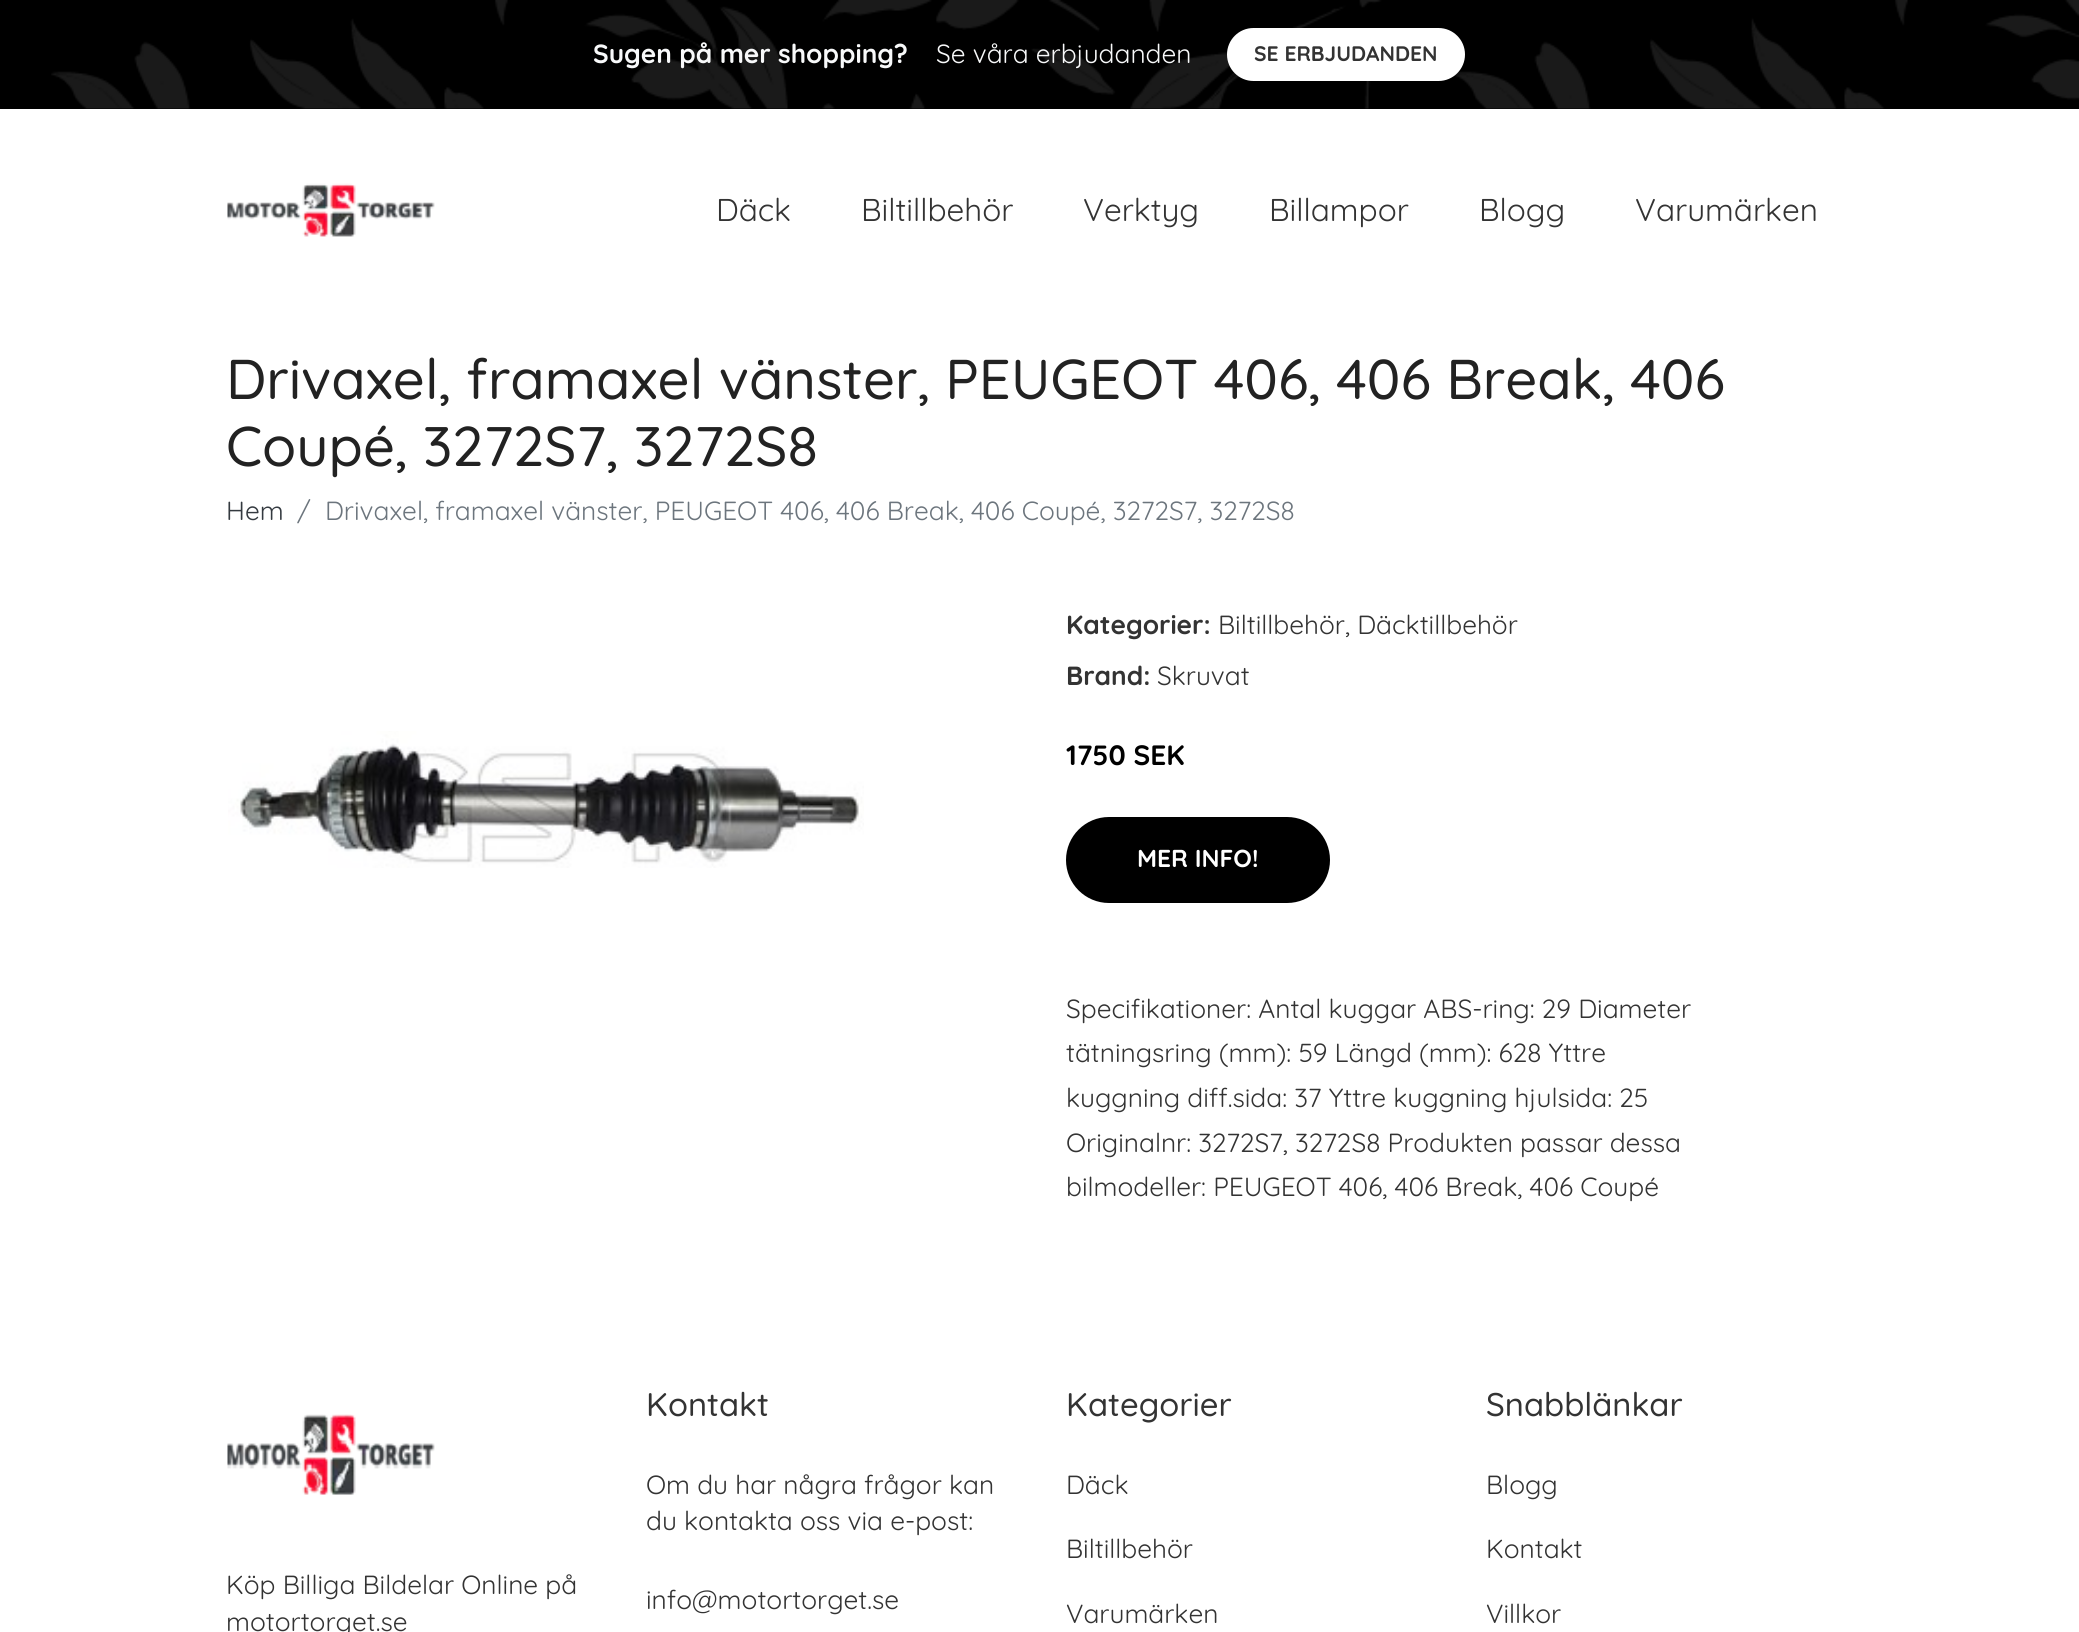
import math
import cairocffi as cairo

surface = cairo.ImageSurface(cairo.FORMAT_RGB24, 2079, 1632)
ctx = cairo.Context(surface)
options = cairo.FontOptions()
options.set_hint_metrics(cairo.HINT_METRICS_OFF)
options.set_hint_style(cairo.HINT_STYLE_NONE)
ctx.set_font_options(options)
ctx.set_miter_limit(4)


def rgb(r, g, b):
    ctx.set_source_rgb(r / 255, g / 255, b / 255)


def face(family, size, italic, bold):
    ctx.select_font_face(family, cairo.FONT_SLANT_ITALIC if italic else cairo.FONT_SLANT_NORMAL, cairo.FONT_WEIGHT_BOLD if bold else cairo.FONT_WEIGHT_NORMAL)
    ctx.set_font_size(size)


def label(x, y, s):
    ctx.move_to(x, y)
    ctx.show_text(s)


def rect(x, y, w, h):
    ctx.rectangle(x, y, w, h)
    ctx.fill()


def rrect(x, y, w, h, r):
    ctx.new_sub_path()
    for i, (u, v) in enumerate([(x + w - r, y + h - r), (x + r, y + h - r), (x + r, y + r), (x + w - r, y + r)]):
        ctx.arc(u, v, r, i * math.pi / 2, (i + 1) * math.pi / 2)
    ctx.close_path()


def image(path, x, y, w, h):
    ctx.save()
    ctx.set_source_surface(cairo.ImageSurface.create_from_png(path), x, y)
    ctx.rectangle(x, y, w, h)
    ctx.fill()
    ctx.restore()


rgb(255, 255, 255)
ctx.paint()
rgb(0, 0, 0)
rect(0, 0, 51, 109)
image('image0.png', 51, 0, 2028, 109)
face('Quicksand', 26.25, 0, 1)
rgb(248, 249, 250)
label(593, 63, 'Sugen på mer shopping?')
face('Quicksand', 26.25, 0, 0)
label(936, 63, 'Se våra erbjudanden')
rgb(255, 255, 255)
rrect(1228, 29, 236, 51, 25.5)
ctx.fill_preserve()
ctx.stroke()
face('Quicksand', 21, 0, 1)
rgb(51, 51, 51)
label(1254, 61, 'SE ERBJUDANDEN')
image('image1.png', 227, 183, 208, 54)
face('Quicksand', 31.5, 0, 0)
label(716, 221, 'Däck')
label(861, 221, 'Biltillbehör')
label(1083, 221, 'Verktyg')
label(1269, 221, 'Billampor')
label(1479, 221, 'Blogg')
label(1635, 221, 'Varumärken')
face('Quicksand Medium', 56, 0, 0)
rgb(34, 34, 34)
label(226, 399, 'Drivaxel, framaxel vänster, PEUGEOT 406, 406 Break, 406')
label(226, 466, 'Coupé, 3272S7, 3272S8')
face('Quicksand', 26.25, 0, 0)
rgb(52, 58, 64)
label(226, 520, 'Hem')
rgb(108, 117, 125)
label(297, 520, '/')
label(325, 520, 'Drivaxel, framaxel vänster, PEUGEOT 406, 406 Break, 406 Coupé, 3272S7, 3272S8')
image('image2.png', 228, 731, 636, 137)
face('Quicksand', 26.25, 0, 1)
rgb(51, 51, 51)
label(1066, 634, 'Kategorier:')
face('Quicksand', 26.25, 0, 0)
label(1218, 634, 'Biltillbehör, Däcktillbehör')
face('Quicksand', 26.25, 0, 1)
label(1066, 685, 'Brand:')
face('Quicksand', 26.25, 0, 0)
label(1157, 685, 'Skruvat')
face('Quicksand', 28, 0, 1)
rgb(0, 0, 0)
label(1066, 765, '1750 SEK')
rrect(1067, 818, 262, 84, 42)
ctx.fill_preserve()
ctx.stroke()
face('Quicksand', 24.5, 0, 1)
rgb(255, 255, 255)
label(1137, 867, 'MER INFO!')
face('Quicksand', 26.25, 0, 0)
rgb(51, 51, 51)
label(1066, 1018, 'Specifikationer: Antal kuggar ABS-ring: 29 Diameter')
label(1066, 1062, 'tätningsring (mm): 59 Längd (mm): 628 Yttre')
label(1066, 1107, 'kuggning diff.sida: 37 Yttre kuggning hjulsida: 25')
label(1066, 1152, 'Originalnr: 3272S7, 3272S8 Produkten passar dessa')
label(1066, 1196, 'bilmodeller: PEUGEOT 406, 406 Break, 406 Coupé')
image('image3.png', 227, 1414, 208, 81)
label(226, 1594, 'Köp Billiga Bildelar Online på')
label(226, 1631, 'motortorget.se')
face('Quicksand Medium', 32.75, 0, 0)
label(646, 1416, 'Kontakt')
face('Quicksand', 26.25, 0, 0)
label(646, 1494, 'Om du har några frågor kan')
label(646, 1530, 'du kontakta oss via e-post:')
label(646, 1609, 'info@motortorget.se')
face('Quicksand Medium', 32.75, 0, 0)
label(1066, 1416, 'Kategorier')
face('Quicksand', 26.25, 0, 0)
label(1066, 1494, 'Däck')
label(1066, 1558, 'Biltillbehör')
label(1066, 1623, 'Varumärken')
face('Quicksand Medium', 32.75, 0, 0)
label(1486, 1416, 'Snabblänkar')
face('Quicksand', 26.25, 0, 0)
label(1486, 1494, 'Blogg')
label(1486, 1558, 'Kontakt')
label(1486, 1623, 'Villkor')
surface.write_to_png('render.png')
